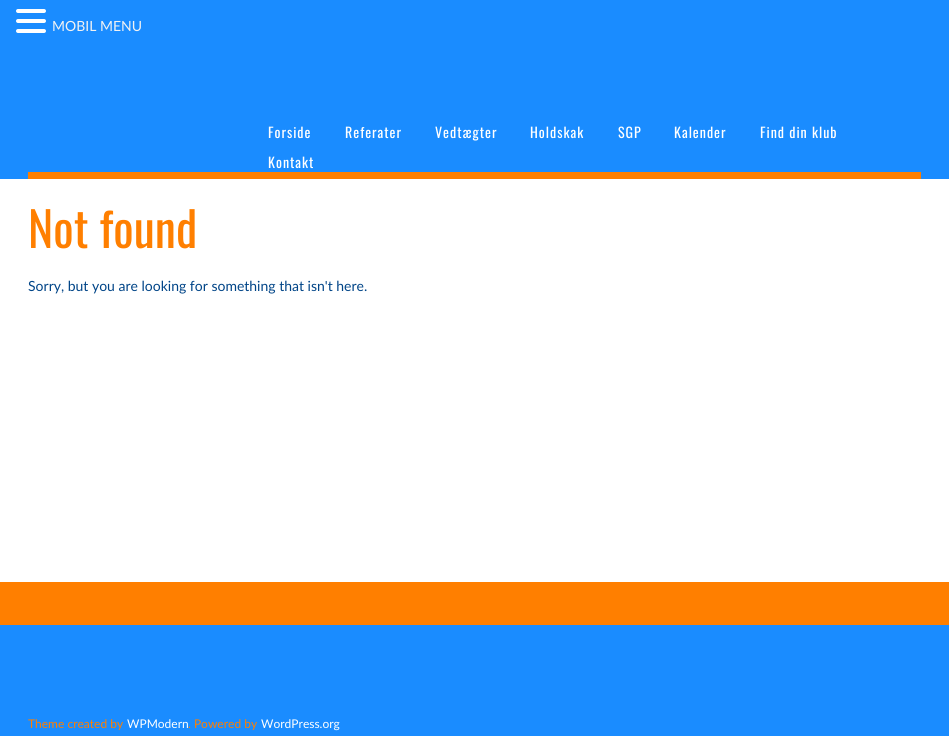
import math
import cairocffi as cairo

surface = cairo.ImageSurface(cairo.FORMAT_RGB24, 949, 736)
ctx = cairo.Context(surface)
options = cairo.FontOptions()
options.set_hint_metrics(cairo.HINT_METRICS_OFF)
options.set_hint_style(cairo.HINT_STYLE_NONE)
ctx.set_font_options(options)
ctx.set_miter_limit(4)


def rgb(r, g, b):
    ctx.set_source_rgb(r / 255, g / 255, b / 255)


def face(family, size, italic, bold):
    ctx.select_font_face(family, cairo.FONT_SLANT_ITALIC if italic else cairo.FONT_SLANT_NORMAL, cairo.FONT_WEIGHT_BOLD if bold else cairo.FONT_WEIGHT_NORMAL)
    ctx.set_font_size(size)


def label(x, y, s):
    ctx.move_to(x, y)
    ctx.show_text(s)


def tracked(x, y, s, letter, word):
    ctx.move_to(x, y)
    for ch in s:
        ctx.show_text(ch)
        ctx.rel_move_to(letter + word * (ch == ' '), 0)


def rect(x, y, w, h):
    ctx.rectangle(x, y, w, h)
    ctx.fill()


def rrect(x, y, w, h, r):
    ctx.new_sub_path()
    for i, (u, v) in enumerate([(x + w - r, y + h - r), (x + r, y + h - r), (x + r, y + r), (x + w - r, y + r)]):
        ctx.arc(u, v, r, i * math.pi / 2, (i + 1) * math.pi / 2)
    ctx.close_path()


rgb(255, 255, 255)
ctx.paint()
rgb(26, 140, 255)
rect(0, 0, 949, 179)
rgb(255, 255, 255)
rrect(16, 9, 30, 4, 2)
ctx.fill()
rrect(16, 19, 30, 4, 2)
ctx.fill()
rrect(16, 29, 30, 4, 2)
ctx.fill()
face('Lato', 14, 0, 0)
rgb(242, 242, 242)
label(52, 31, 'MOBIL MENU')
face('Oswald', 14, 0, 0)
rgb(255, 255, 255)
tracked(268, 138, 'Forside', 1, 0)
tracked(345, 138, 'Referater', 1, 0)
tracked(435, 138, 'Vedtægter', 1, 0)
tracked(530, 138, 'Holdskak', 1, 0)
tracked(618, 138, 'SGP', 1, 0)
tracked(674, 138, 'Kalender', 1, 0)
tracked(760, 138, 'Find din klub', 1, 0)
tracked(268, 168, 'Kontakt', 1, 0)
rgb(255, 127, 0)
rect(28, 172, 893, 7)
face('Oswald', 48, 0, 0)
label(28, 248, 'Not found')
face('Lato', 14, 0, 0)
rgb(0, 68, 135)
label(28, 291, 'Sorry, but you are looking for something that isn\'t here.')
rgb(255, 127, 0)
rect(0, 582, 949, 43)
rgb(26, 140, 255)
rect(0, 625, 949, 111)
face('Lato', 12, 0, 0)
rgb(255, 127, 0)
label(28, 728, 'Theme created by')
rgb(255, 255, 255)
label(127, 728, 'WPModern')
rgb(255, 127, 0)
label(188, 728, '. Powered by')
rgb(255, 255, 255)
label(261, 728, 'WordPress.org')
surface.write_to_png('render.png')
